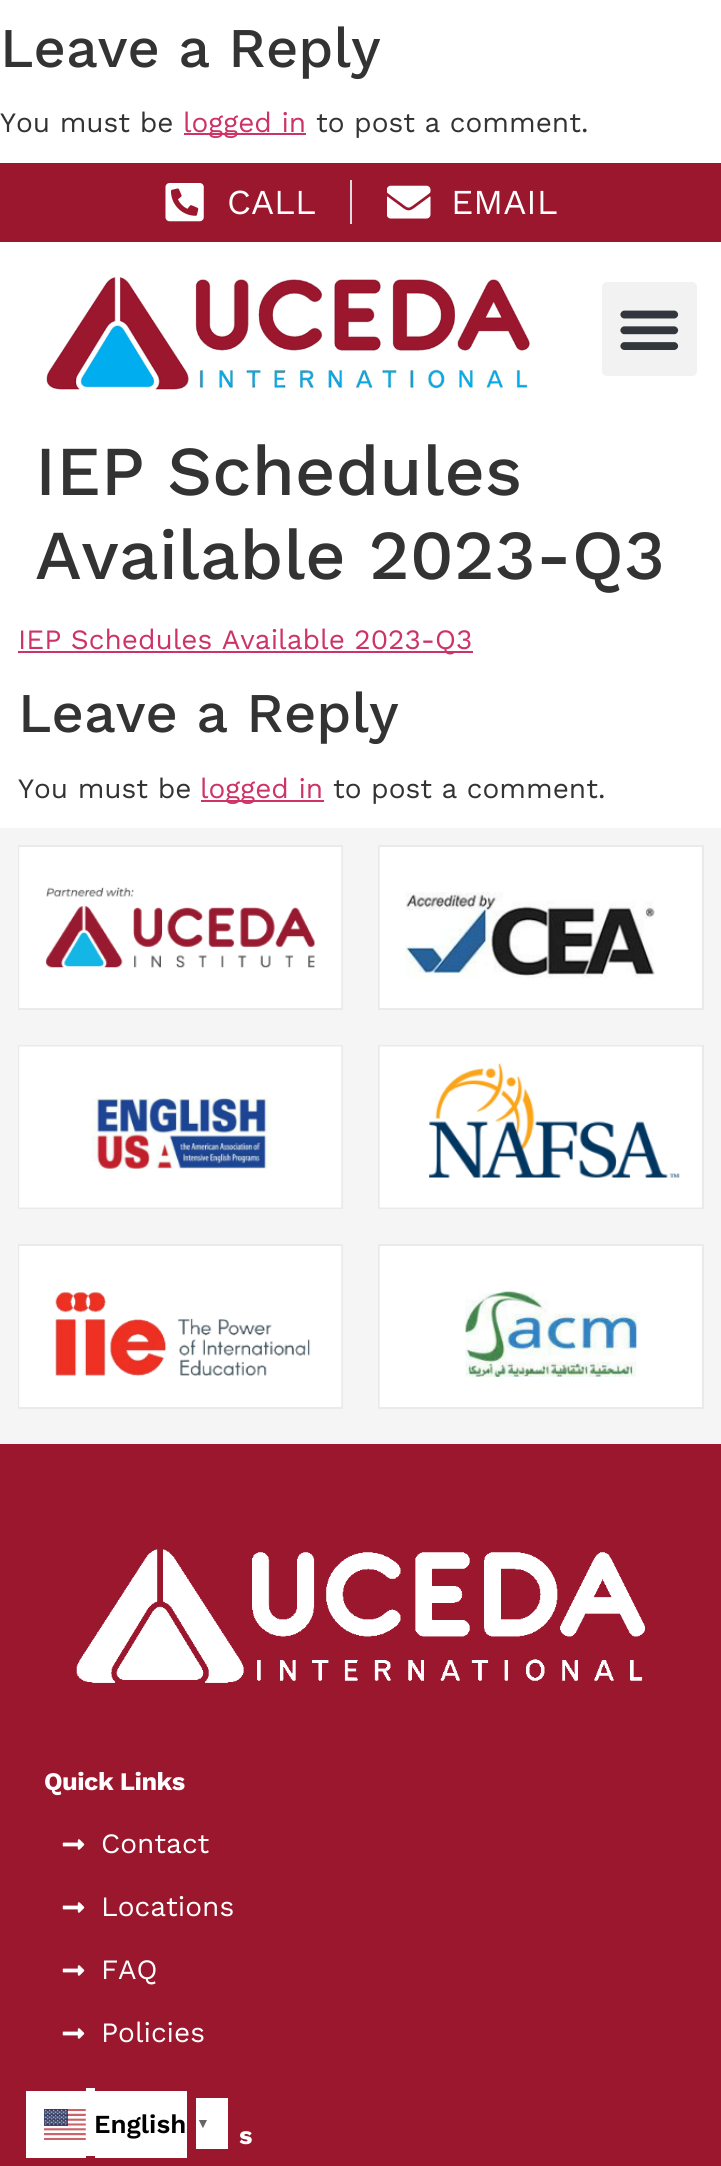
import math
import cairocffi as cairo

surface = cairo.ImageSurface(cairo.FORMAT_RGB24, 721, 2166)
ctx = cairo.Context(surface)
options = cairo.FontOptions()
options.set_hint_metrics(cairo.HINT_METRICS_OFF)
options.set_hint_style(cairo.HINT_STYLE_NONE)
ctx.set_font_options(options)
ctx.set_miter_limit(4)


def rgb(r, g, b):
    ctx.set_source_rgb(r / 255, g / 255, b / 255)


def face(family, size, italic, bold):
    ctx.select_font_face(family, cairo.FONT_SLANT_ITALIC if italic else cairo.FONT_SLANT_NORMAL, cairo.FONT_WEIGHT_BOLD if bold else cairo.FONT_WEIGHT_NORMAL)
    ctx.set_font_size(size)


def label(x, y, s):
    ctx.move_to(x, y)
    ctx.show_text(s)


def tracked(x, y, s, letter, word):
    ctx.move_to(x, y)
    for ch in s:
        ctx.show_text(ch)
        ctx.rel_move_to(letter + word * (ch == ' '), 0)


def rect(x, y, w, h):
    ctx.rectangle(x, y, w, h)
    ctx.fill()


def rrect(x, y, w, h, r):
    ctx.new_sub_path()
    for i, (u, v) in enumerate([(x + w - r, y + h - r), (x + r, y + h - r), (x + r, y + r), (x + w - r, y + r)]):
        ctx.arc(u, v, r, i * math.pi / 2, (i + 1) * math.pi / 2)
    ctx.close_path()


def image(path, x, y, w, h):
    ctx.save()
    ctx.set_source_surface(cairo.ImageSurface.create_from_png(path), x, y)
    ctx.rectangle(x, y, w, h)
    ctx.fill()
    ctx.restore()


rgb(255, 255, 255)
ctx.paint()
face('Work Sans Medium', 56, 0, 0)
rgb(51, 51, 51)
label(0, 67, 'Leave a Reply')
face('Work Sans', 28, 0, 0)
label(0, 132, 'You must be')
rgb(204, 51, 102)
rect(184, 133, 122, 2)
label(183, 132, 'logged in')
rgb(51, 51, 51)
label(316, 132, 'to post a comment.')
rgb(155, 23, 46)
rect(0, 163, 721, 79)
image('image0.png', 165, 183, 39, 39)
face('Work Sans', 35, 0, 0)
rgb(255, 255, 255)
label(227, 214, 'CALL')
rgb(221, 221, 221)
rect(350, 180, 2, 44)
image('image1.png', 387, 185, 44, 34)
rgb(255, 255, 255)
label(451, 214, 'EMAIL')
image('image2.png', 46, 277, 484, 113)
rgb(242, 242, 242)
rrect(602, 282, 95, 94, 5)
ctx.fill()
image('image3.png', 620, 310, 59, 40)
face('Work Sans Medium', 70, 0, 0)
rgb(51, 51, 51)
label(35, 495, 'IEP Schedules')
label(35, 579, 'Available 2023-Q3')
rgb(204, 51, 102)
rect(18, 651, 455, 2)
face('Work Sans', 28, 0, 0)
label(18, 649, 'IEP Schedules Available 2023-Q3')
face('Work Sans Medium', 56, 0, 0)
rgb(51, 51, 51)
label(18, 732, 'Leave a Reply')
face('Work Sans', 28, 0, 0)
label(18, 798, 'You must be')
rgb(204, 51, 102)
rect(201, 800, 123, 2)
label(200, 798, 'logged in')
rgb(51, 51, 51)
label(333, 798, 'to post a comment.')
rgb(245, 245, 245)
rect(0, 828, 721, 616)
ctx.rectangle(19, 846, 323, 163)
rgb(234, 234, 234)
ctx.stroke()
image('image4.png', 19, 847, 323, 161)
ctx.rectangle(379, 846, 324, 163)
ctx.stroke()
image('image5.png', 379, 847, 323, 161)
ctx.rectangle(19, 1046, 323, 162)
ctx.stroke()
image('image6.png', 19, 1046, 323, 162)
ctx.rectangle(379, 1046, 324, 162)
ctx.stroke()
image('image7.png', 379, 1046, 323, 162)
ctx.rectangle(19, 1245, 323, 163)
ctx.stroke()
image('image8.png', 19, 1246, 323, 161)
ctx.rectangle(379, 1245, 324, 163)
ctx.stroke()
image('image9.png', 379, 1246, 323, 161)
rgb(155, 23, 46)
rect(0, 1444, 721, 722)
image('image10.png', 76, 1549, 569, 134)
face('Work Sans', 25.25, 0, 1)
rgb(255, 255, 255)
tracked(44, 1790, 'Quick Links', -0.5, 0)
image('image11.png', 62, 1839, 23, 11)
face('Work Sans', 28, 0, 0)
label(101, 1853, 'Contact')
image('image11.png', 62, 1902, 23, 11)
label(101, 1916, 'Locations')
image('image11.png', 62, 1965, 23, 11)
label(101, 1979, 'FAQ')
image('image11.png', 62, 2028, 23, 11)
label(101, 2042, 'Policies')
face('Work Sans', 25.25, 0, 1)
tracked(239, 2144, 's', -0.5, 0)
rect(26, 2091, 60, 67)
image('image12.png', 44, 2109, 42, 31)
rect(95, 2091, 92, 67)
face('Work Sans SemiBold', 26, 0, 0)
rgb(0, 0, 0)
label(94, 2133, 'English')
rgb(255, 255, 255)
rect(86, 2088, 9, 68)
rect(196, 2098, 32, 51)
face('Liberation Sans', 14, 0, 1)
rgb(102, 102, 102)
label(196, 2128, '▼')
surface.write_to_png('render.png')
